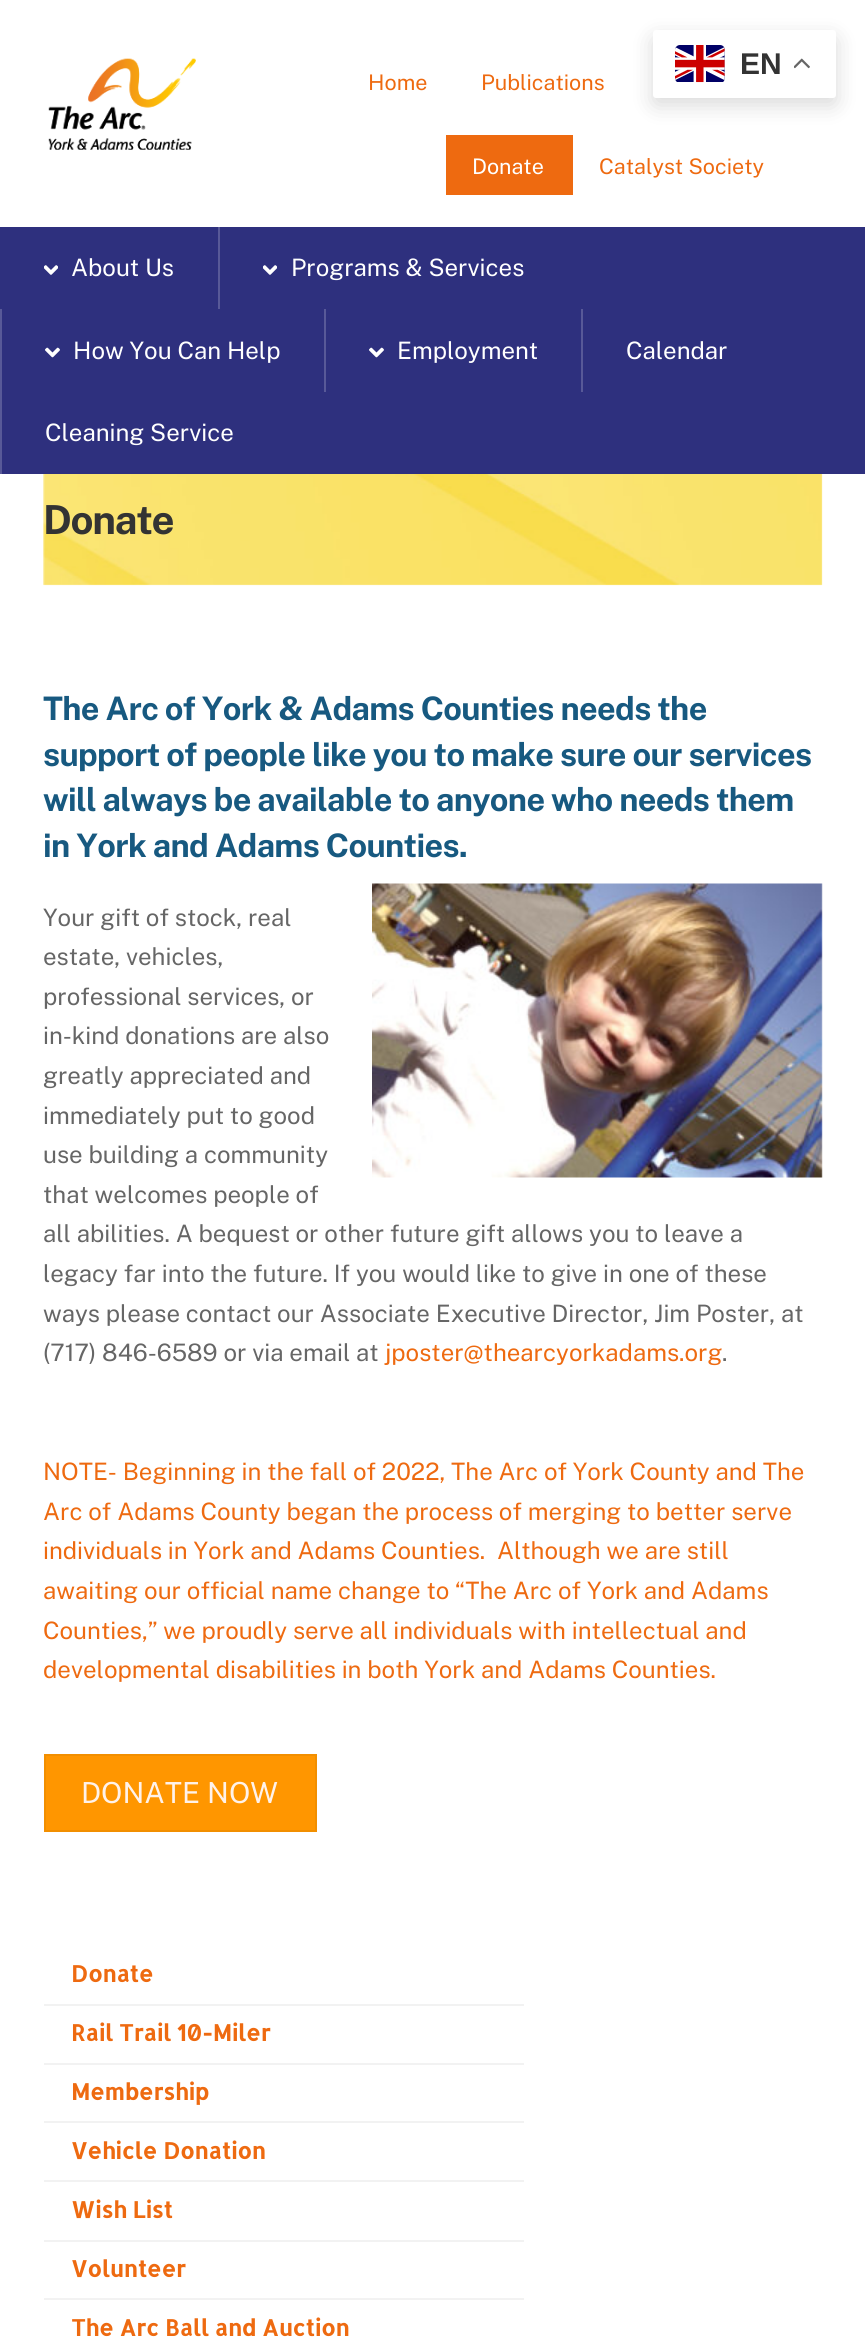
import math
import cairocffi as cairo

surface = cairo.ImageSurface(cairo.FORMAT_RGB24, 865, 2345)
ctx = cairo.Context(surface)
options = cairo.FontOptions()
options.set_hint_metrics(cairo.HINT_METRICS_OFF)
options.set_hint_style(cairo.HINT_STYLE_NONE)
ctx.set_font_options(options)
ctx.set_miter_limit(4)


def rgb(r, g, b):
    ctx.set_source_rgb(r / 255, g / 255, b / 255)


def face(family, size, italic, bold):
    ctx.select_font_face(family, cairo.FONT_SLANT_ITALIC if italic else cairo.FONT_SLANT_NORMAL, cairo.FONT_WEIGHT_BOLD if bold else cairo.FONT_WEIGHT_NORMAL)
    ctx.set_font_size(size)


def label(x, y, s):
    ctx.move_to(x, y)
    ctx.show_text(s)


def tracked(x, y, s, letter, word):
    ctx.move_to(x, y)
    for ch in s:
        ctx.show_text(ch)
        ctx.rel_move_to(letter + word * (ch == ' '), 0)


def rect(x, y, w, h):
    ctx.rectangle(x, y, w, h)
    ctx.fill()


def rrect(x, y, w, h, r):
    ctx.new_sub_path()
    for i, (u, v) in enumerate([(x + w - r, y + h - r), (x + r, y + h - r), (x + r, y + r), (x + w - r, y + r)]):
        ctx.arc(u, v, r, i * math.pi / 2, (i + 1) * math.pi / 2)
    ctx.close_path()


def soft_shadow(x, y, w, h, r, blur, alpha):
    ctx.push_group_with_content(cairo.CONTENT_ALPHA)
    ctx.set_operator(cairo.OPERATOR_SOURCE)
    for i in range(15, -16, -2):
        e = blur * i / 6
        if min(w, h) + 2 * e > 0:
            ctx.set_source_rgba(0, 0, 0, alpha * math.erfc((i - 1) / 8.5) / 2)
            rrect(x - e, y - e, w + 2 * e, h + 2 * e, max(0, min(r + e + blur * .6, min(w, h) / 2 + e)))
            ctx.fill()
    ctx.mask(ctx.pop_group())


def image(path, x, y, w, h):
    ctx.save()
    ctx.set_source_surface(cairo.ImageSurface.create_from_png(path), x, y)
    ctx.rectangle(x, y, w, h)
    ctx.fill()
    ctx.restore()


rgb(255, 255, 255)
ctx.paint()
rgb(0, 0, 0)
soft_shadow(653, 38, 183, 67, 3, 11, 0.15)
rgb(255, 255, 255)
rrect(653, 30, 183, 68, 3)
ctx.fill()
image('image0.png', 675, 45, 50, 38)
face('Liberation Sans', 30, 0, 1)
rgb(51, 51, 51)
label(740, 74, 'EN')
image('image1.png', 794, 58, 16, 11)
image('image2.png', 48, 58, 148, 92)
face('Public Sans', 21.5, 0, 0)
rgb(238, 106, 16)
label(368, 90, 'Home')
label(481, 90, 'Publications')
rect(446, 135, 127, 60)
rgb(255, 255, 255)
label(472, 174, 'Donate')
rgb(238, 106, 16)
label(599, 174, 'Catalyst Society')
rgb(46, 48, 126)
rect(0, 227, 865, 247)
image('image3.png', 44, 265, 14, 10)
face('Public Sans', 24, 0, 0)
rgb(255, 255, 255)
label(71, 276, 'About Us')
rgb(88, 89, 152)
rect(218, 227, 2, 82)
image('image3.png', 263, 265, 14, 10)
rgb(255, 255, 255)
label(291, 276, 'Programs & Services')
rgb(88, 89, 152)
rect(0, 309, 2, 165)
image('image4.png', 45, 347, 15, 11)
rgb(255, 255, 255)
label(73, 359, 'How You Can Help')
rgb(88, 89, 152)
rect(324, 309, 2, 83)
image('image4.png', 369, 347, 15, 11)
rgb(255, 255, 255)
label(397, 359, 'Employment')
rgb(88, 89, 152)
rect(581, 309, 2, 83)
rgb(255, 255, 255)
label(626, 359, 'Calendar')
label(45, 441, 'Cleaning Service')
image('image5.png', 43, 474, 780, 112)
face('Public Sans', 40, 0, 1)
rgb(51, 51, 51)
tracked(43, 534, 'Donate', -1.25, 0)
face('Public Sans', 32.4, 0, 1)
rgb(23, 89, 128)
tracked(43, 720, 'The Arc of York & Adams Counties needs the', -0.65, 0)
tracked(43, 766, 'support of people like you to make sure our services', -0.65, 0)
tracked(43, 811, 'will always be available to anyone who needs them', -0.65, 0)
tracked(43, 857, 'in York and Adams Counties.', -0.65, 0)
image('image6.png', 372, 883, 451, 295)
face('Public Sans', 24, 0, 0)
rgb(102, 102, 102)
label(43, 926, 'Your gift of stock, real')
label(43, 965, 'estate, vehicles,')
label(43, 1005, 'professional services, or')
label(43, 1044, 'in-kind donations are also')
label(43, 1084, 'greatly appreciated and')
label(43, 1124, 'immediately put to good')
label(43, 1163, 'use building a community')
label(43, 1203, 'that welcomes people of')
label(43, 1242, 'all abilities. A bequest or other future gift allows you to leave a')
label(43, 1282, 'legacy far into the future. If you would like to give in one of these')
label(43, 1322, 'ways please contact our Associate Executive Director, Jim Poster, at')
label(43, 1361, '(717) 846-6589 or via email at')
rgb(238, 106, 16)
label(385, 1361, 'jposter@thearcyorkadams.org')
rgb(102, 102, 102)
label(722, 1361, '.')
rgb(238, 106, 16)
label(43, 1480, 'NOTE- Beginning in the fall of 2022, The Arc of York County and The')
label(43, 1520, 'Arc of Adams County began the process of merging to better serve')
label(43, 1559, 'individuals in York and Adams Counties.  Although we are still')
label(43, 1599, 'awaiting our official name change to “The Arc of York and Adams')
label(43, 1639, 'Counties,” we proudly serve all individuals with intellectual and')
label(43, 1678, 'developmental disabilities in both York and Adams Counties.')
rgb(255, 150, 0)
ctx.rectangle(45, 1755, 271, 76)
ctx.fill_preserve()
rgb(242, 143, 0)
ctx.stroke()
face('Public Sans', 29, 0, 0)
rgb(255, 242, 234)
label(81, 1803, 'DONATE NOW')
rgb(242, 242, 242)
rect(44, 2004, 480, 2)
face('Allerta', 22.5, 0, 1)
rgb(238, 106, 16)
label(71, 1982, 'Donate')
rgb(242, 242, 242)
rect(44, 2063, 480, 2)
rgb(238, 106, 16)
label(71, 2041, 'Rail Trail 10-Miler')
rgb(242, 242, 242)
rect(44, 2121, 480, 2)
rgb(238, 106, 16)
label(71, 2100, 'Membership')
rgb(242, 242, 242)
rect(44, 2180, 480, 2)
rgb(238, 106, 16)
label(71, 2159, 'Vehicle Donation')
rgb(242, 242, 242)
rect(44, 2240, 480, 2)
rgb(238, 106, 16)
label(71, 2218, 'Wish List')
rgb(242, 242, 242)
rect(44, 2298, 480, 2)
rgb(238, 106, 16)
label(71, 2277, 'Volunteer')
label(71, 2336, 'The Arc Ball and Auction')
surface.write_to_png('render.png')
